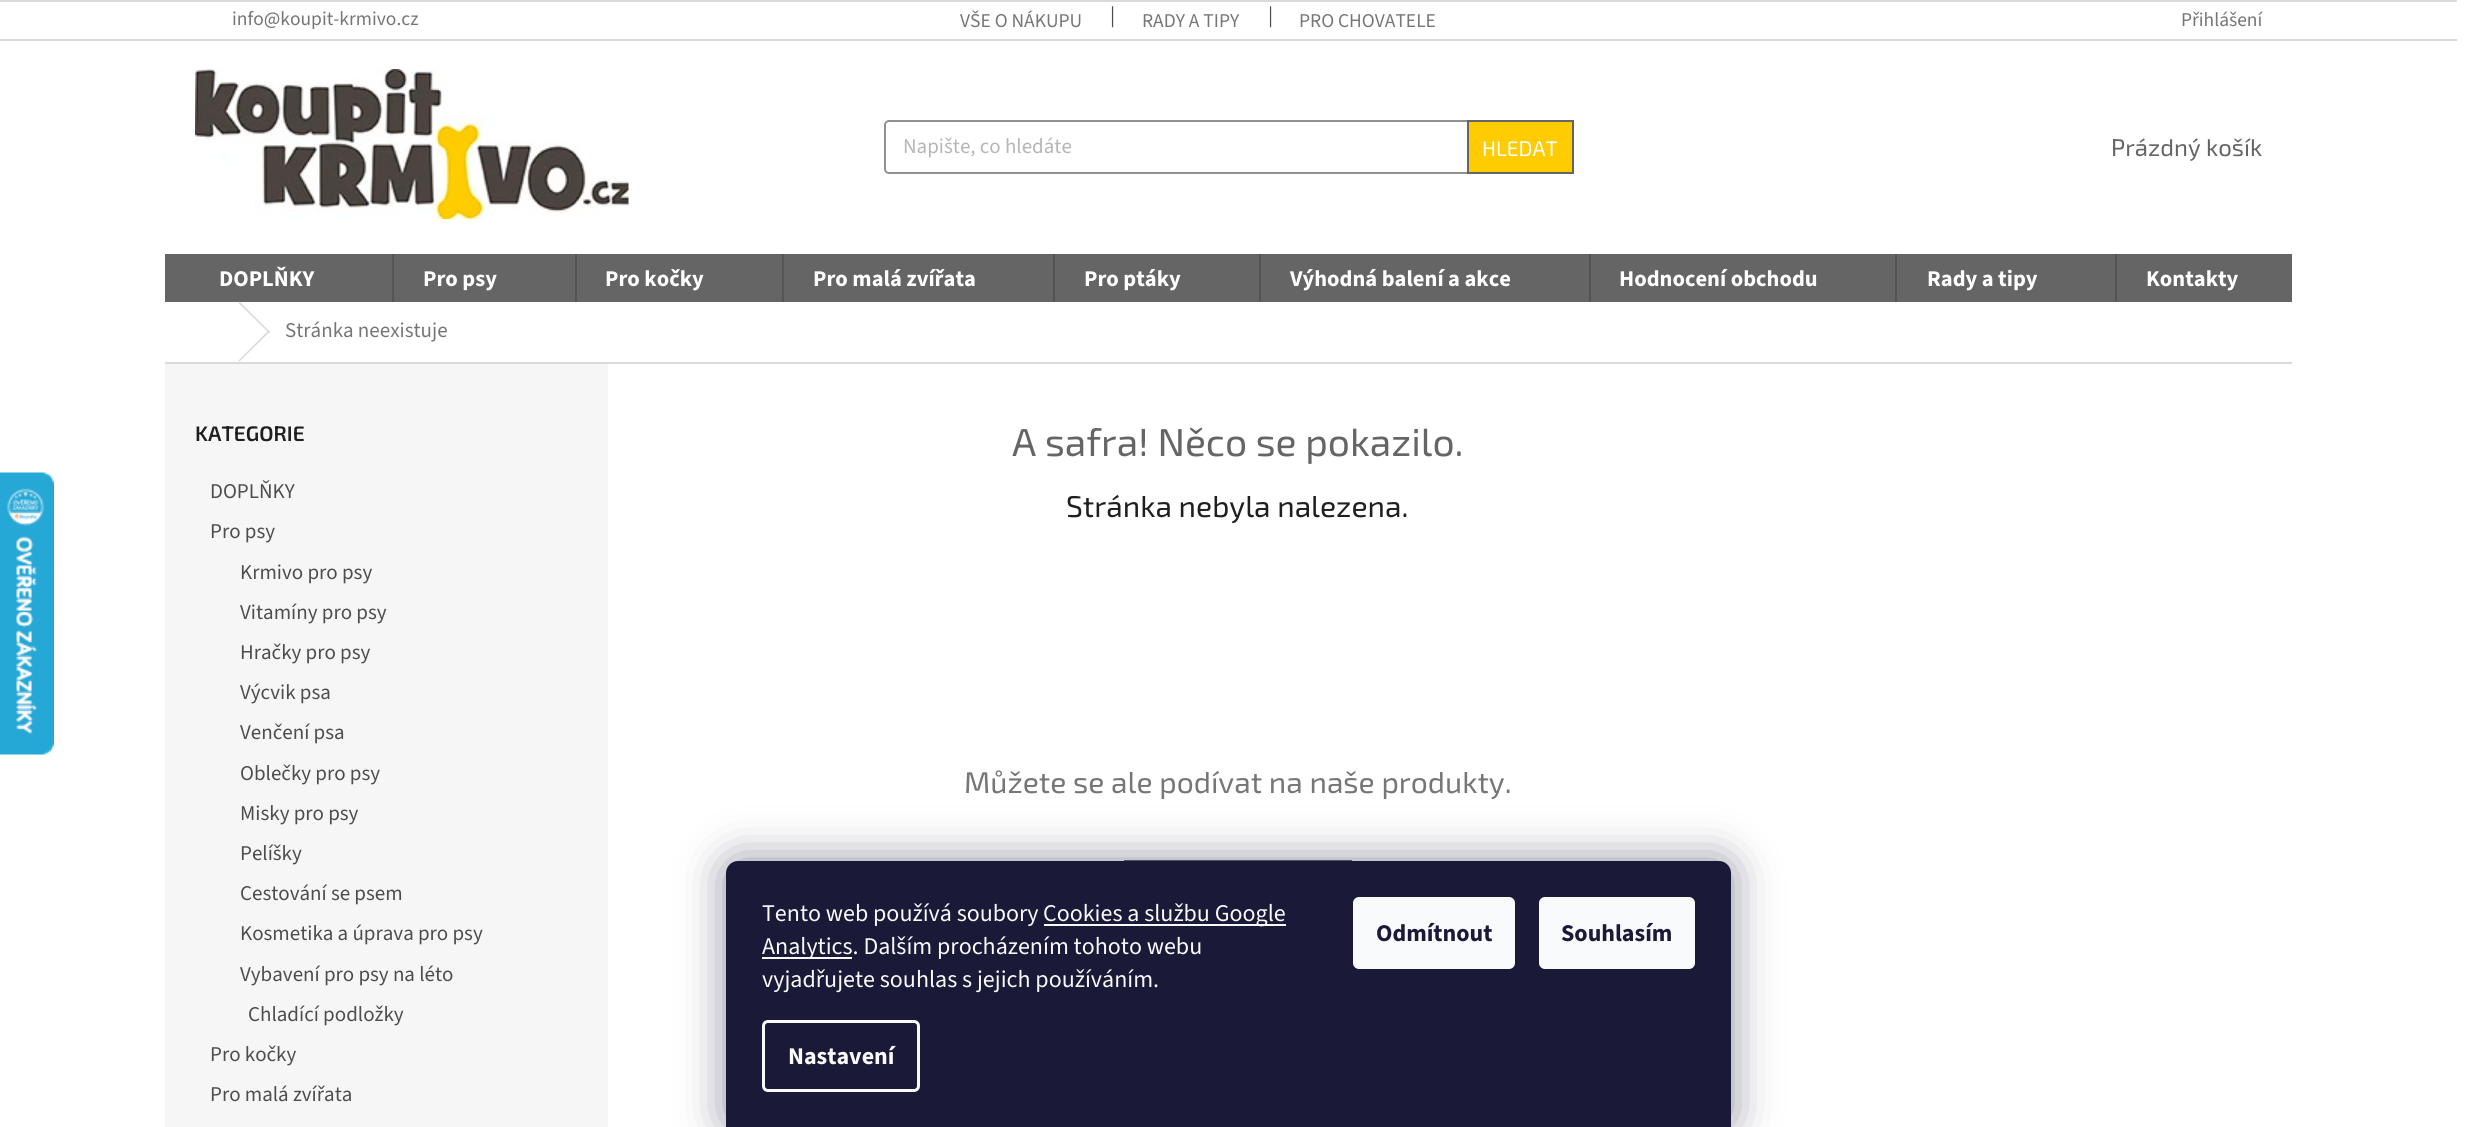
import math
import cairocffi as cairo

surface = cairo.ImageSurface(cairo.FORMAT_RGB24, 2479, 1127)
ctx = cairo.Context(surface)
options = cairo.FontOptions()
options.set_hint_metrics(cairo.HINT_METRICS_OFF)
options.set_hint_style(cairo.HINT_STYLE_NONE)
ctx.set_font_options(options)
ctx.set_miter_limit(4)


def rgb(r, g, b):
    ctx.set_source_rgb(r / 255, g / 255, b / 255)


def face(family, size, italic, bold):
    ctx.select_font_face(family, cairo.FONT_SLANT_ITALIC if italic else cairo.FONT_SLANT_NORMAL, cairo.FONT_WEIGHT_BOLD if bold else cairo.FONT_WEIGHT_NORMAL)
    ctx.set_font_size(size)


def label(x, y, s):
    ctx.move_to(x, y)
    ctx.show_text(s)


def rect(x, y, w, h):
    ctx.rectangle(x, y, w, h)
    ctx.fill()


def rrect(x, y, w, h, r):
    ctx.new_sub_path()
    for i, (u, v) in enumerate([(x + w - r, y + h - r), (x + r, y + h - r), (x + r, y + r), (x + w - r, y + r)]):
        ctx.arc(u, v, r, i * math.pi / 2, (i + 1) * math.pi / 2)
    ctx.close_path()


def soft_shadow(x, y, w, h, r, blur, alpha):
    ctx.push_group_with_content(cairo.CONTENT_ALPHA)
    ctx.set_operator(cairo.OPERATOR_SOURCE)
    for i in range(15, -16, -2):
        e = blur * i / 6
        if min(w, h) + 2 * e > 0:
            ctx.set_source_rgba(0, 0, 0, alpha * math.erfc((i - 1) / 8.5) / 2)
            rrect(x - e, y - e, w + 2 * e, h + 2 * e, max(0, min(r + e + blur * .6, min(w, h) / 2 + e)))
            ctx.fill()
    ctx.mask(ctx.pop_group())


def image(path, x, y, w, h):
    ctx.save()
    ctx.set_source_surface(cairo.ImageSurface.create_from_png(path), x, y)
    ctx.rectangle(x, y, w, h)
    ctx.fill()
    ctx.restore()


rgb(255, 255, 255)
ctx.paint()
image('image0.png', 0, 472, 54, 283)
rgb(218, 218, 218)
rect(0, 0, 2457, 2)
rect(0, 39, 2457, 2)
face('Source Sans 3', 19.5, 0, 0)
rgb(118, 118, 118)
label(232, 25, 'info@koupit-krmivo.cz')
label(960, 27, 'VŠE O NÁKUPU')
face('Source Sans 3', 21, 0, 0)
rgb(77, 77, 77)
label(1110, 22, '|')
face('Source Sans 3', 19.5, 0, 0)
rgb(118, 118, 118)
label(1142, 27, 'RADY A TIPY')
face('Source Sans 3', 21, 0, 0)
rgb(77, 77, 77)
label(1268, 22, '|')
face('Source Sans 3', 19.5, 0, 0)
rgb(118, 118, 118)
label(1299, 27, 'PRO CHOVATELE')
label(2181, 26, 'Přihlášení')
image('image1.png', 195, 69, 434, 150)
rrect(885, 121, 688, 52, 4)
rgb(145, 145, 145)
ctx.stroke()
face('Source Sans 3', 21, 0, 0)
rgb(182, 182, 182)
label(903, 153, 'Napište, co hledáte')
rgb(254, 204, 0)
ctx.rectangle(1468, 121, 105, 52)
ctx.fill_preserve()
rgb(101, 101, 101)
ctx.stroke()
face('Exo 2', 21, 0, 0)
rgb(255, 255, 255)
label(1482, 156, 'HLEDAT')
face('Exo 2', 24, 0, 0)
rgb(101, 101, 101)
label(2111, 156, 'Prázdný košík')
rect(165, 254, 2127, 48)
face('Source Sans 3', 22.5, 0, 1)
rgb(255, 255, 255)
label(219, 286, 'DOPLŇKY')
rgb(84, 84, 84)
rect(392, 254, 2, 48)
rgb(255, 255, 255)
label(423, 286, 'Pro psy')
rgb(84, 84, 84)
rect(575, 254, 2, 48)
rgb(255, 255, 255)
label(605, 286, 'Pro kočky')
rgb(84, 84, 84)
rect(782, 254, 2, 48)
rgb(255, 255, 255)
label(813, 286, 'Pro malá zvířata')
rgb(84, 84, 84)
rect(1053, 254, 2, 48)
rgb(255, 255, 255)
label(1084, 286, 'Pro ptáky')
rgb(84, 84, 84)
rect(1259, 254, 2, 48)
rgb(255, 255, 255)
label(1290, 286, 'Výhodná balení a akce')
rgb(84, 84, 84)
rect(1589, 254, 2, 48)
rgb(255, 255, 255)
label(1619, 286, 'Hodnocení obchodu')
rgb(84, 84, 84)
rect(1895, 254, 2, 48)
rgb(255, 255, 255)
label(1927, 286, 'Rady a tipy')
rgb(84, 84, 84)
rect(2115, 254, 2, 48)
rgb(255, 255, 255)
label(2146, 286, 'Kontakty')
rgb(218, 218, 218)
rect(165, 362, 2127, 2)
ctx.new_path()
ctx.move_to(238.5, 303)
ctx.line_to(239.5, 301.5)
ctx.line_to(270, 332)
ctx.line_to(269, 333)
ctx.close_path()
ctx.fill()
ctx.new_path()
ctx.move_to(269, 330)
ctx.line_to(270, 331.5)
ctx.line_to(239.5, 361.5)
ctx.line_to(238.5, 360.5)
ctx.close_path()
ctx.fill()
face('Source Sans 3', 21, 0, 0)
rgb(118, 118, 118)
label(285, 337, 'Stránka neexistuje')
rgb(246, 246, 246)
rect(165, 364, 443, 763)
face('Exo 2 SemiBold', 21, 0, 0)
rgb(31, 31, 31)
label(195, 441, 'KATEGORIE')
face('Source Sans 3', 21, 0, 0)
rgb(77, 77, 77)
label(210, 498, 'DOPLŇKY')
label(210, 538, 'Pro psy')
label(240, 579, 'Krmivo pro psy')
label(240, 619, 'Vitamíny pro psy')
label(240, 659, 'Hračky pro psy')
label(240, 699, 'Výcvik psa')
label(240, 739, 'Venčení psa')
label(240, 780, 'Oblečky pro psy')
label(240, 820, 'Misky pro psy')
label(240, 860, 'Pelíšky')
label(240, 900, 'Cestování se psem')
label(240, 940, 'Kosmetika a úprava pro psy')
label(240, 981, 'Vybavení pro psy na léto')
label(248, 1021, 'Chladící podložky')
label(210, 1061, 'Pro kočky')
label(210, 1101, 'Pro malá zvířata')
face('Exo 2', 39, 0, 0)
rgb(101, 101, 101)
label(1012, 456, 'A safra! Něco se pokazilo.')
face('Exo 2', 30, 0, 0)
rgb(31, 31, 31)
label(1066, 517, 'Stránka nebyla nalezena.')
rgb(118, 118, 118)
label(964, 793, 'Můžete se ale podívat na naše produkty.')
ctx.rectangle(1125, 861, 226, 52)
rgb(101, 101, 101)
ctx.stroke()
rgb(27, 25, 57)
soft_shadow(726, 861, 1005, 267, 12, 22.5, 0.5)
rgb(26, 25, 55)
ctx.new_path()
ctx.move_to(738, 861)
ctx.line_to(1719, 861)
ctx.curve_to(1725.5, 861, 1731, 866.5, 1731, 873)
ctx.line_to(1731, 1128)
ctx.line_to(726, 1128)
ctx.line_to(726, 873)
ctx.curve_to(726, 866.5, 731.5, 861, 738, 861)
ctx.close_path()
ctx.fill()
face('Source Sans 3', 24, 0, 0)
rgb(248, 250, 251)
label(762, 921, 'Tento web používá soubory')
rect(1044, 924, 242, 2)
label(1043, 921, 'Cookies a službu Google')
rect(762, 957, 90, 2)
label(762, 954, 'Analytics. Dalším procházením tohoto webu')
label(762, 987, 'vyjadřujete souhlas s jejich používáním.')
rrect(763.5, 1021.5, 155, 69, 4.5)
ctx.set_line_width(3)
ctx.stroke()
face('Source Sans 3', 24, 0, 1)
label(788, 1064, 'Nastavení')
rrect(1353, 897, 162, 72, 6)
ctx.fill()
rgb(26, 25, 55)
label(1376, 941, 'Odmítnout')
rgb(248, 250, 251)
rrect(1539, 897, 156, 72, 6)
ctx.fill()
rgb(26, 25, 55)
label(1561, 941, 'Souhlasím')
surface.write_to_png('render.png')
